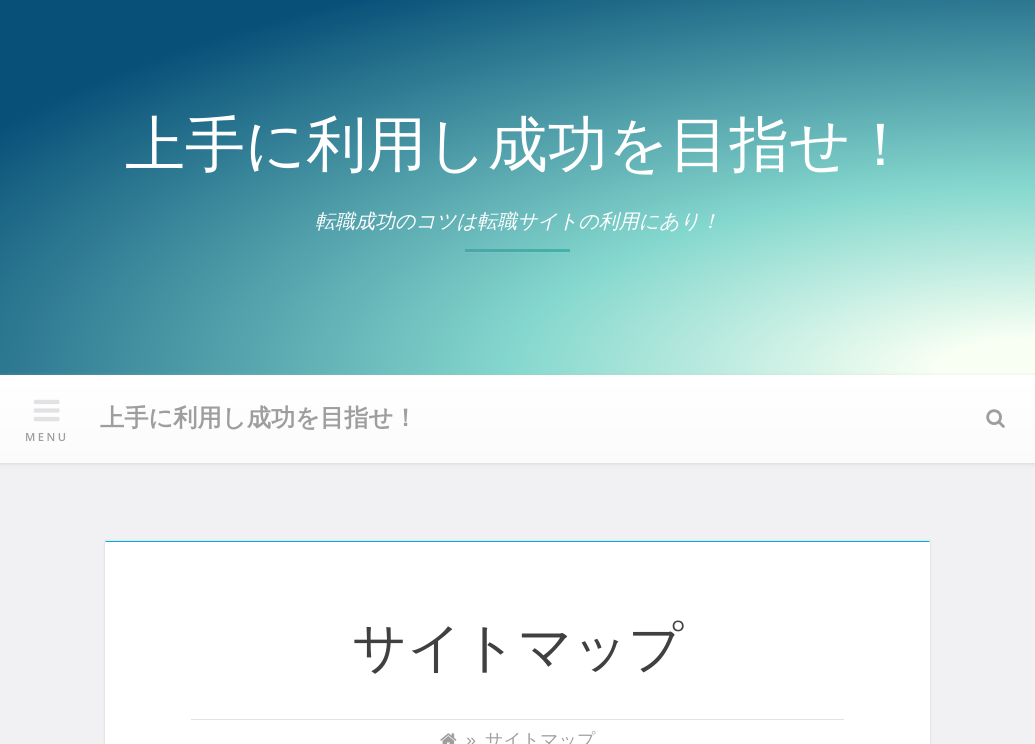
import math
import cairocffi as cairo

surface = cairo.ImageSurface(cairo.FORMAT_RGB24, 1035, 744)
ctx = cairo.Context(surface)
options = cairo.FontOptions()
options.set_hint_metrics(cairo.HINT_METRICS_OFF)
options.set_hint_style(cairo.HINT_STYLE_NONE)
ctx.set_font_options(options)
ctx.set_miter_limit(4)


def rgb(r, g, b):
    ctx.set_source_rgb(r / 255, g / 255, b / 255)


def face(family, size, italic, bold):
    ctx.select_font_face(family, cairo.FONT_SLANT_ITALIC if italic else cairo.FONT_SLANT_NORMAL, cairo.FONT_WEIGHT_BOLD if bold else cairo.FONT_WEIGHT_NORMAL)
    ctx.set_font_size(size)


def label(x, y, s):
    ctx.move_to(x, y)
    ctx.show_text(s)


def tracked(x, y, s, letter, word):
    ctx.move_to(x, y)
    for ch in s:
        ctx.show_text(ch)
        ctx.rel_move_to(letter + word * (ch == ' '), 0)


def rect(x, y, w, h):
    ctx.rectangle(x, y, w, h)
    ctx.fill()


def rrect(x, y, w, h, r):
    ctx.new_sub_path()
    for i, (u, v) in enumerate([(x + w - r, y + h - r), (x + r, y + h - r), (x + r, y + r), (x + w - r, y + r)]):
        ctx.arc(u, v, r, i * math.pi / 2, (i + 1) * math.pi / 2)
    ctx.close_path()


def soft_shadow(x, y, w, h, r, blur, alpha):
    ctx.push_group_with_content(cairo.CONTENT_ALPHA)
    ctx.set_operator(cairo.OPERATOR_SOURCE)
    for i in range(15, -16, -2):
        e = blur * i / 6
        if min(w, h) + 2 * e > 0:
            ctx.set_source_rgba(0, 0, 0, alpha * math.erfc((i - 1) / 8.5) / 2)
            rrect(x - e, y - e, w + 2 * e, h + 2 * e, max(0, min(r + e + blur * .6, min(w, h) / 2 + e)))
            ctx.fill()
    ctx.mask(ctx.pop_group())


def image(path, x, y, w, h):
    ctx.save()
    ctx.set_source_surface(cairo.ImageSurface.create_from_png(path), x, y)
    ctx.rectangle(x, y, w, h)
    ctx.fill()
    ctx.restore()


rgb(241, 241, 243)
ctx.paint()
gradient = cairo.RadialGradient(0, 0, 0, 0, 0, 1)
gradient.set_matrix(cairo.Matrix(1 / 1242, 0, 0, 1 / 450, -1 * 1035 / 1242, -1 * 375 / 450))
gradient.add_color_stop_rgba(0.08, 0.973, 1, 0.953, 1)
gradient.add_color_stop_rgba(0.42, 0.522, 0.847, 0.808, 1)
gradient.add_color_stop_rgba(1, 0.031, 0.314, 0.471, 1)
ctx.set_source(gradient)
rect(0, 0, 1035, 375)
gradient = cairo.RadialGradient(0, 0, 0, 0, 0, 1)
gradient.set_matrix(cairo.Matrix(1 / 1242, 0, 0, 1 / 450, -1 * 1035 / 1242, -1 * 375 / 450))
gradient.add_color_stop_rgba(0.08, 0.953, 0.996, 0.953, 1)
gradient.add_color_stop_rgba(0.42, 0.533, 0.855, 0.816, 1)
gradient.add_color_stop_rgba(1, 0.078, 0.357, 0.502, 1)
ctx.set_source(gradient)
rect(465, 252, 105, 1)
face('WenQuanYi Zen Hei Medium', 60, 0, 0)
rgb(255, 255, 255)
label(125, 165, '上手に利用し成功を目指せ！')
gradient = cairo.LinearGradient(465, 250, 570, 250)
gradient.add_color_stop_rgba(0, 0, 0.443, 0.459, 0.3)
gradient.add_color_stop_rgba(1, 0, 0.561, 0.529, 0.45)
ctx.set_source(gradient)
rect(465, 249, 105, 3)
face('WenQuanYi Zen Hei Medium', 20, 1, 0)
rgb(255, 255, 255)
label(315, 228, '転職成功のコツは転職サイトの利用にあり！')
rgb(190, 190, 190)
soft_shadow(0, 376, 1035, 88, 0, 2, 0.5)
gradient = cairo.LinearGradient(518, 375, 518, 463)
gradient.add_color_stop_rgba(0, 1, 1, 1, 1)
gradient.add_color_stop_rgba(1, 0.984, 0.984, 0.988, 1)
ctx.set_source(gradient)
rect(0, 375, 1035, 88)
face('WenQuanYi Zen Hei', 24.25, 0, 1)
rgb(158, 158, 158)
label(100, 426, '上手に利用し成功を目指せ！')
image('image0.png', 986, 409, 19, 19)
image('image1.png', 33, 399, 27, 23)
face('Khula SemiBold', 12, 0, 0)
tracked(25, 441, 'MENU', 2.5, 0)
rgb(0, 0, 0)
soft_shadow(105, 541, 825, 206, 0, 1, 0.15)
rgb(255, 255, 255)
rect(105, 541, 825, 203)
rgb(0, 172, 223)
ctx.new_path()
ctx.move_to(105, 541)
ctx.line_to(930, 541)
ctx.line_to(929, 542)
ctx.line_to(106, 542)
ctx.close_path()
ctx.fill()
face('WenQuanYi Zen Hei Medium', 54, 0, 0)
rgb(64, 64, 64)
label(352, 666, 'サイトマップ')
rgb(226, 226, 229)
rect(191, 719, 653, 1)
image('image2.png', 440, 733, 17, 11)
face('Liberation Sans', 18, 0, 0)
rgb(158, 158, 158)
label(466, 746, '»')
face('WenQuanYi Zen Hei Medium', 18, 0, 0)
label(485, 746, 'サイトマップ')
surface.write_to_png('render.png')
